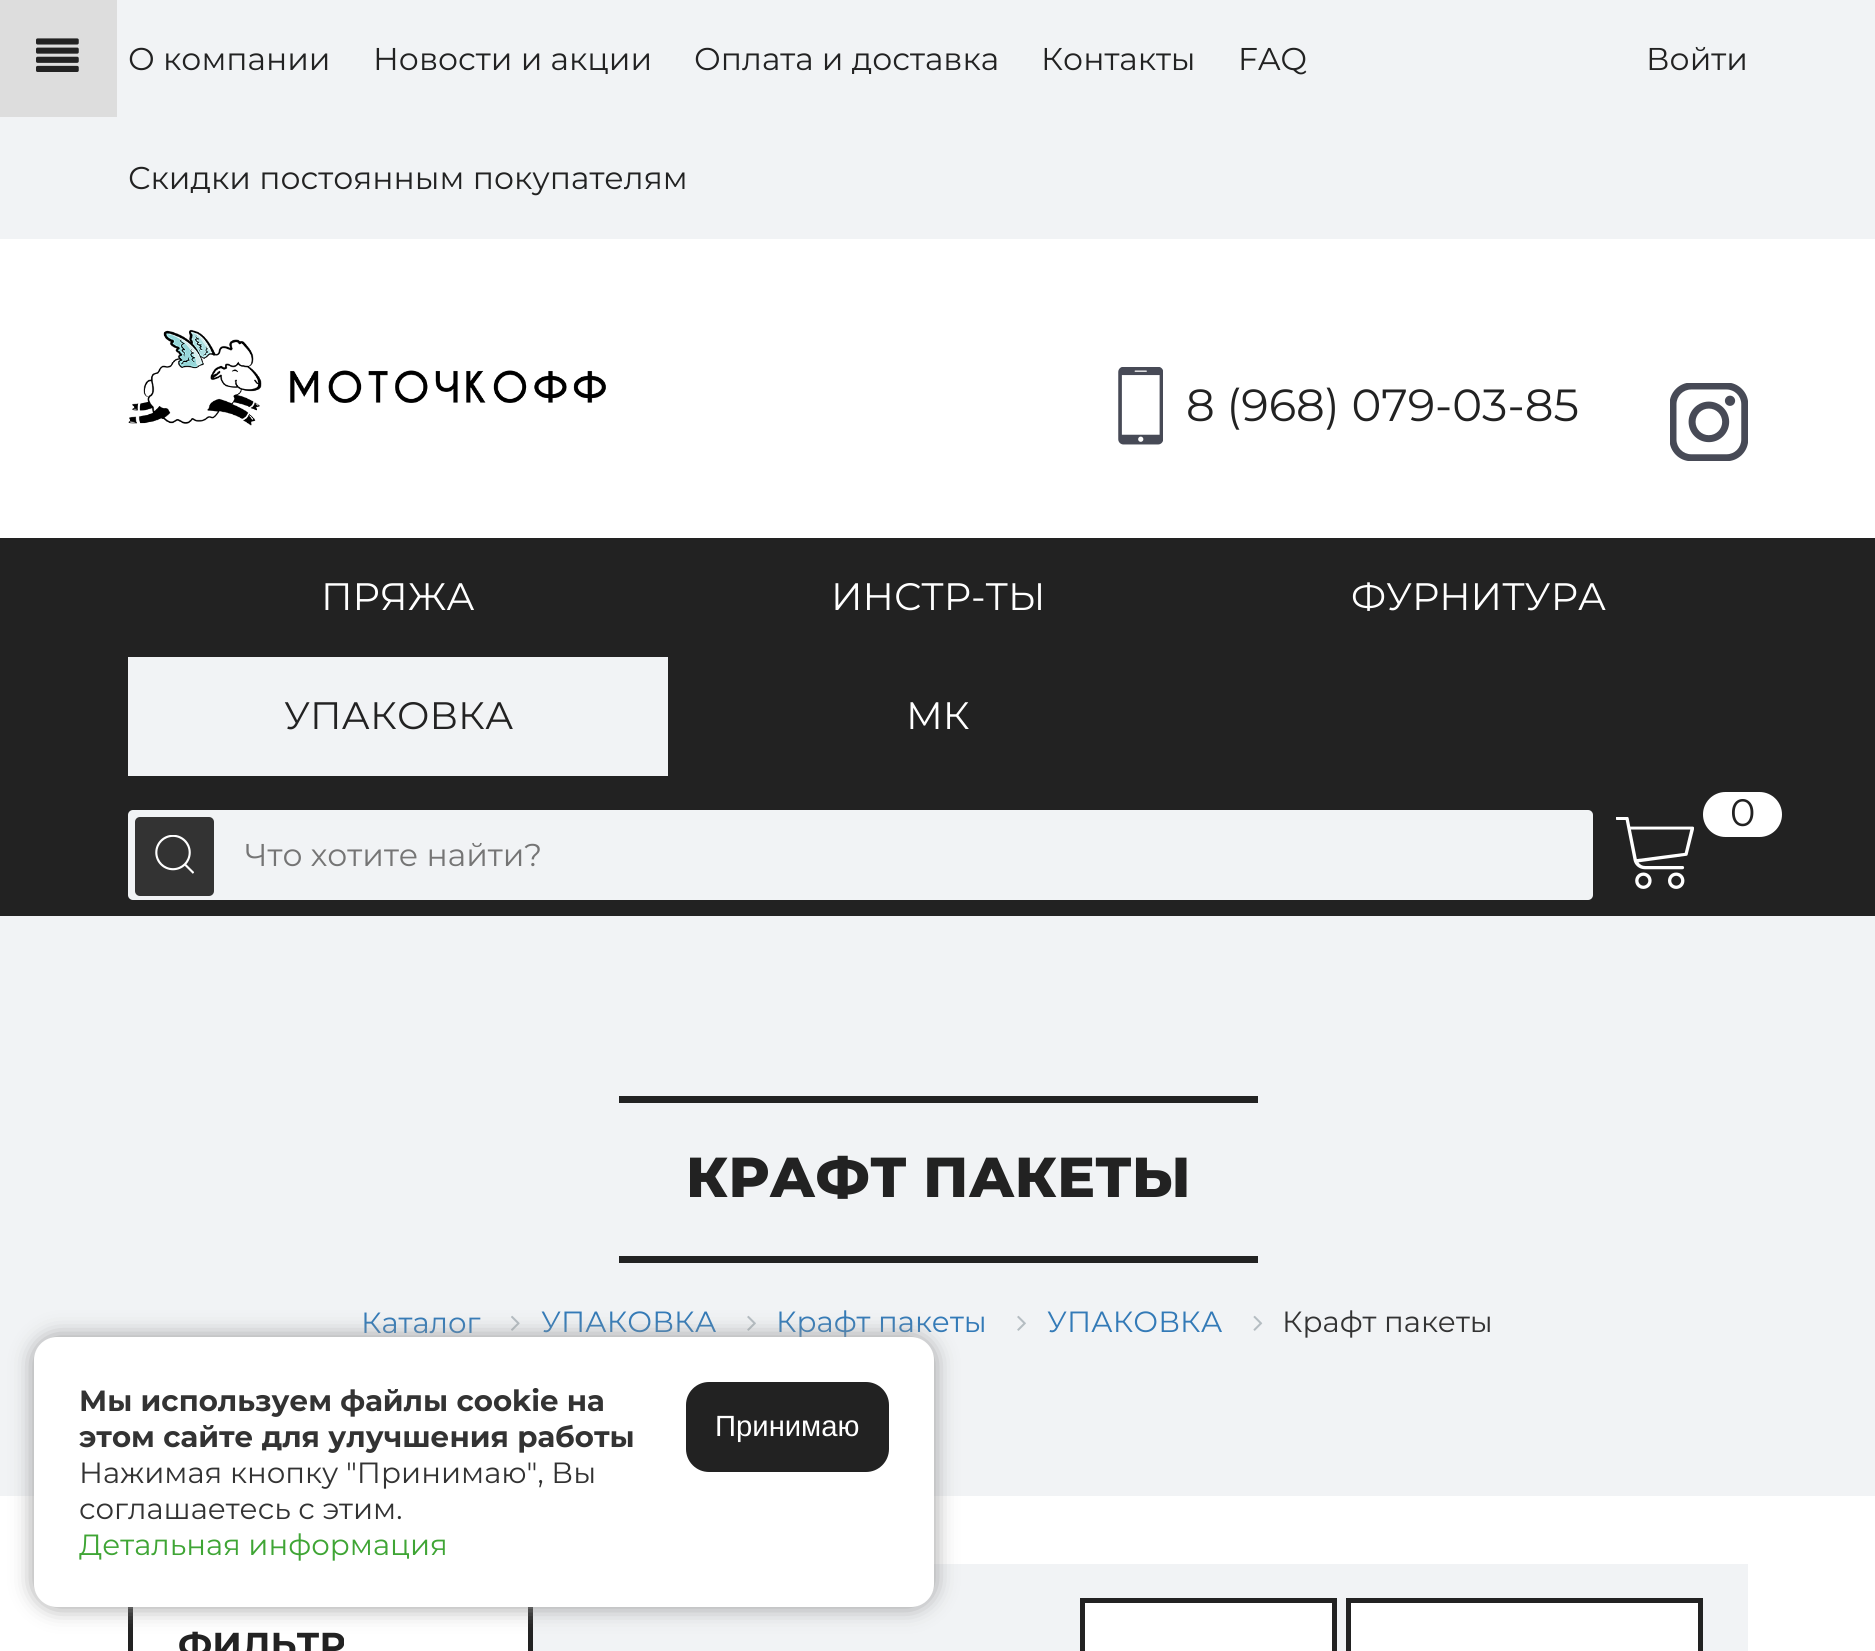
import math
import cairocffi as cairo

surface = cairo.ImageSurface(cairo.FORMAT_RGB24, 1875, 1651)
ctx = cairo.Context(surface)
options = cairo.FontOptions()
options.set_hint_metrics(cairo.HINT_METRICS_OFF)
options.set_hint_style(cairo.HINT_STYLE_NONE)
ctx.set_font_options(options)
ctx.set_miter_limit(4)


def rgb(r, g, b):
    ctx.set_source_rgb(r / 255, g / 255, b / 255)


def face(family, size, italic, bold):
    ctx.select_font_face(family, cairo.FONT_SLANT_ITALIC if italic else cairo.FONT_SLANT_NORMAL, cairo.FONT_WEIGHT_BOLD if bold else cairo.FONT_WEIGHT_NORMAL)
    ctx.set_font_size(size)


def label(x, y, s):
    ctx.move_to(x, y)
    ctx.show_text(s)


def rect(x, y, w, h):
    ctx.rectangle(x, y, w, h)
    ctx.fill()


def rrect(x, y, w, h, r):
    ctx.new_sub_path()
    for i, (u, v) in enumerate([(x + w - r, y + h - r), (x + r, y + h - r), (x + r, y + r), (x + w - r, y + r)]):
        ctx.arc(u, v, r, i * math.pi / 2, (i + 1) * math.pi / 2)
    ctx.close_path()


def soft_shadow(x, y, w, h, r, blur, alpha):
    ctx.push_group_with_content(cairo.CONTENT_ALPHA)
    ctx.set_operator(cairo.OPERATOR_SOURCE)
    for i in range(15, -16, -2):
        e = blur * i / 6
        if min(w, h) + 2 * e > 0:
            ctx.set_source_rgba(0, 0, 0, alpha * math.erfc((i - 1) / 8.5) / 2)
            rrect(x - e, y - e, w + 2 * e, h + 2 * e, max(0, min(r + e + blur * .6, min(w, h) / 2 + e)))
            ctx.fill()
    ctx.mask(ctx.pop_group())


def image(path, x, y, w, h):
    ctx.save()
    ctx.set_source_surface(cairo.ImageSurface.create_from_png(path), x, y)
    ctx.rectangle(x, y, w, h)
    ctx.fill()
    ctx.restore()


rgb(255, 255, 255)
ctx.paint()
rgb(241, 243, 245)
rect(0, 0, 1875, 239)
rgb(221, 221, 221)
rect(0, 0, 117, 117)
image('image0.png', 36, 38, 43, 34)
face('Montserrat', 31.5, 0, 0)
rgb(34, 34, 34)
label(128, 70, 'О компании')
label(373, 70, 'Новости и акции')
label(694, 70, 'Оплата и доставка')
label(1041, 70, 'Контакты')
label(1238, 70, 'FAQ')
label(128, 189, 'Скидки постоянным покупателям')
label(1646, 70, 'Войти')
image('image1.png', 128, 329, 478, 97)
image('image2.png', 1118, 367, 45, 78)
face('Montserrat', 45, 0, 0)
label(1186, 421, '8 (968) 079-03-85')
image('image3.png', 1670, 383, 78, 78)
rect(0, 538, 1875, 378)
face('Montserrat', 38.25, 0, 0)
rgb(255, 255, 255)
label(321, 610, 'ПРЯЖА')
label(831, 610, 'ИНСТР-ТЫ')
label(1351, 610, 'ФУРНИТУРА')
rgb(241, 243, 245)
rect(128, 657, 540, 119)
rgb(34, 34, 34)
label(284, 729, 'УПАКОВКА')
rgb(255, 255, 255)
label(906, 729, 'МК')
image('image4.png', 1616, 817, 78, 72)
rrect(1703, 792, 79, 45, 22.5)
ctx.fill()
rgb(34, 34, 34)
label(1730, 826, '0')
rgb(241, 243, 245)
rrect(128, 810, 1465, 90, 5)
ctx.fill()
rgb(51, 51, 51)
rrect(135, 817, 79, 79, 5)
ctx.fill()
image('image5.png', 155, 835, 39, 39)
face('Montserrat', 31.5, 0, 0)
rgb(117, 117, 117)
label(245, 866, 'Что хотите найти?')
rgb(241, 243, 245)
rect(0, 916, 1875, 580)
rgb(34, 34, 34)
rect(619, 1096, 639, 7)
rect(619, 1256, 639, 7)
face('Montserrat ExtraBold', 56.25, 0, 0)
label(686, 1197, 'КРАФТ ПАКЕТЫ')
face('Montserrat', 29.25, 0, 0)
rgb(51, 122, 183)
label(361, 1333, 'Каталог')
image('image6.png', 511, 1315, 9, 16)
label(541, 1332, 'УПАКОВКА')
image('image7.png', 747, 1315, 9, 16)
label(776, 1332, 'Крафт пакеты')
image('image7.png', 1017, 1315, 9, 16)
label(1047, 1332, 'УПАКОВКА')
image('image8.png', 1253, 1315, 10, 16)
rgb(51, 51, 51)
label(1282, 1332, 'Крафт пакеты')
ctx.rectangle(130.5, 1566.5, 400, 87)
rgb(34, 34, 34)
ctx.set_line_width(5)
ctx.stroke()
face('Montserrat', 36, 0, 1)
label(178, 1658, 'ФИЛЬТР')
rgb(241, 243, 245)
rect(533, 1564, 1215, 87)
rgb(255, 255, 255)
ctx.rectangle(1082.5, 1600.5, 252, 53)
ctx.fill_preserve()
rgb(34, 34, 34)
ctx.stroke()
rgb(255, 255, 255)
ctx.rectangle(1348.5, 1600.5, 352, 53)
ctx.fill_preserve()
rgb(34, 34, 34)
ctx.stroke()
rgb(153, 153, 153)
soft_shadow(34, 1337, 900, 270, 23, 11, 1)
rgb(255, 255, 255)
rrect(34, 1337, 900, 270, 23)
ctx.fill()
face('Montserrat', 29.25, 0, 1)
rgb(51, 51, 51)
label(79, 1411, 'Мы используем файлы cookie на')
label(79, 1447, 'этом сайте для улучшения работы')
face('Montserrat', 29.25, 0, 0)
label(79, 1483, 'Нажимая кнопку "Принимаю", Вы')
label(79, 1519, 'соглашаетесь с этим.')
rgb(63, 165, 53)
label(79, 1555, 'Детальная информация')
rgb(34, 34, 34)
rrect(686, 1382, 203, 90, 23)
ctx.fill()
face('Liberation Sans', 29.25, 0, 0)
rgb(255, 255, 255)
label(715, 1436, 'Принимаю')
surface.write_to_png('render.png')
